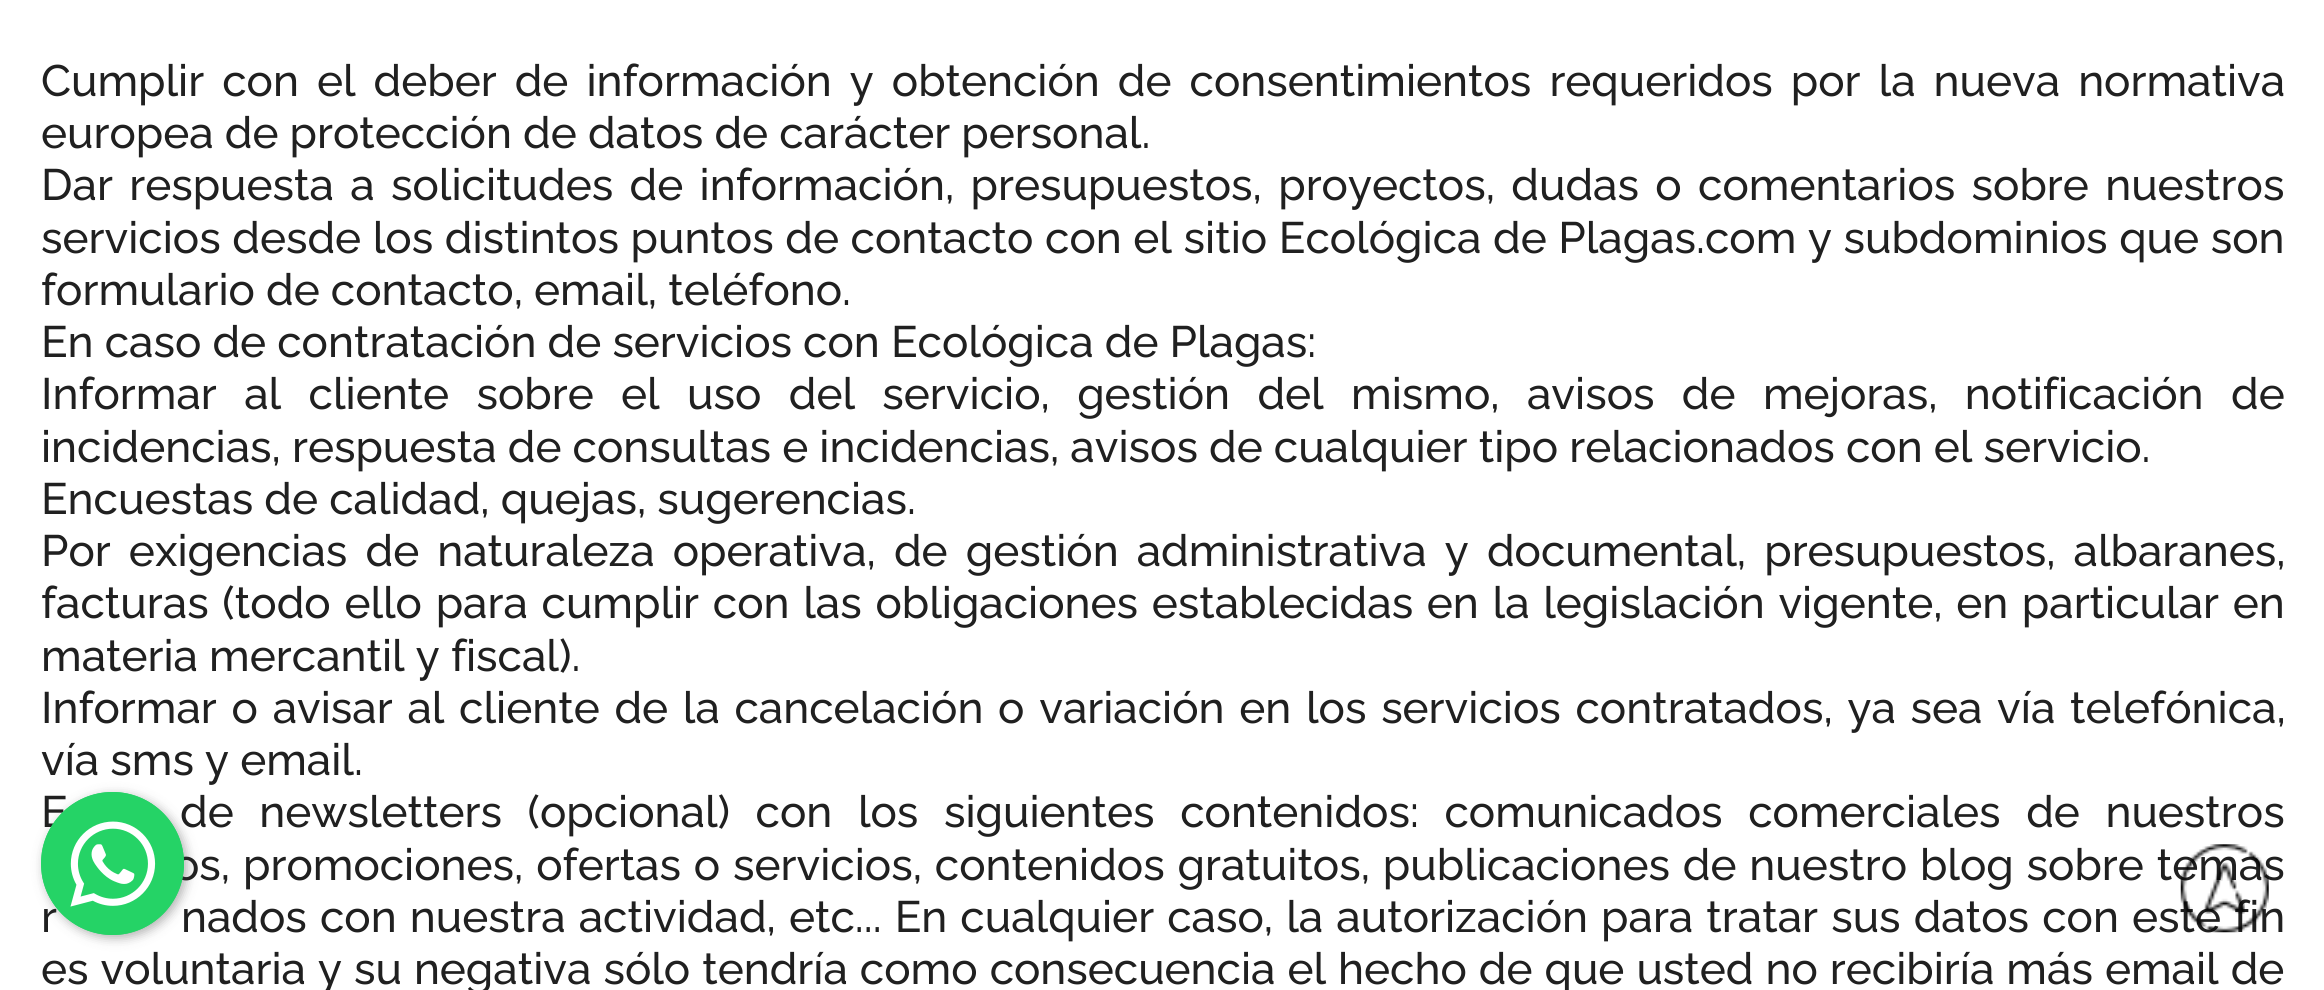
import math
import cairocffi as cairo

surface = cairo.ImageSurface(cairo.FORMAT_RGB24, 2324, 990)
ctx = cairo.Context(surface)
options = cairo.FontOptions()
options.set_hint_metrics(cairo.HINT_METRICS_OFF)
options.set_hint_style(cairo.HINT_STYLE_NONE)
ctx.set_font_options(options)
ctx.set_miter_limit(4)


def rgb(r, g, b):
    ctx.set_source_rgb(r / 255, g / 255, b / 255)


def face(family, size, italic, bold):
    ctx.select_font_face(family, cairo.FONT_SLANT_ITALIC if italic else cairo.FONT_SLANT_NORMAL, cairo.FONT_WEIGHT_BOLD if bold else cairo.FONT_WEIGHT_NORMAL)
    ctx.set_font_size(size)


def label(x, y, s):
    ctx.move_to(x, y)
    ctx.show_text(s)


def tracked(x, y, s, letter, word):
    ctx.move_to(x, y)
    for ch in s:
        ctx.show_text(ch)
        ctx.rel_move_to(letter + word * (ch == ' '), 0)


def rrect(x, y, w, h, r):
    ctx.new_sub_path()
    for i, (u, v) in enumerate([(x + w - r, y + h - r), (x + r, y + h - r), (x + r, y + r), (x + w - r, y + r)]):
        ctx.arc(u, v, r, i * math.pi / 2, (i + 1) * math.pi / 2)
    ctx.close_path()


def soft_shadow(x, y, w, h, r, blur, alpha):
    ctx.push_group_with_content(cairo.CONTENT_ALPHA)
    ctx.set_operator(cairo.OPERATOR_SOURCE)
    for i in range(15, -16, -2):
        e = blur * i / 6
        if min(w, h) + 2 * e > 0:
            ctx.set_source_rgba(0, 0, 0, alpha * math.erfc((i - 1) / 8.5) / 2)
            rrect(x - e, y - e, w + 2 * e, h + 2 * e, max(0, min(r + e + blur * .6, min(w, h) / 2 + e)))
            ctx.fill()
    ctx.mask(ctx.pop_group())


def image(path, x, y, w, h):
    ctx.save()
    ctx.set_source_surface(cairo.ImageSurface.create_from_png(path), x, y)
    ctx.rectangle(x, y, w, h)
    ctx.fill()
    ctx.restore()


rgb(255, 255, 255)
ctx.paint()
face('Raleway Medium', 44, 0, 0)
rgb(32, 32, 32)
tracked(41, 96, 'Cumplir con el deber de información y obtención de consentimientos requeridos por la nueva normativa', 0, 6.9)
label(41, 148, 'europea de protección de datos de carácter personal.')
tracked(41, 200, 'Dar respuesta a solicitudes de información, presupuestos, proyectos, dudas o comentarios sobre nuestros', 0, 5.25)
tracked(41, 253, 'servicios desde los distintos puntos de contacto con el sitio Ecológica de Plagas.com y subdominios que son', 0, 0.5)
label(41, 305, 'formulario de contacto, email, teléfono.')
label(41, 357, 'En caso de contratación de servicios con Ecológica de Plagas:')
tracked(41, 409, 'Informar al cliente sobre el uso del servicio, gestión del mismo, avisos de mejoras, notificación de', 0, 16.25)
label(41, 462, 'incidencias, respuesta de consultas e incidencias, avisos de cualquier tipo relacionados con el servicio.')
label(41, 514, 'Encuestas de calidad, quejas, sugerencias.')
tracked(41, 566, 'Por exigencias de naturaleza operativa, de gestión administrativa y documental, presupuestos, albaranes,', 0, 7)
tracked(41, 618, 'facturas (todo ello para cumplir con las obligaciones establecidas en la legislación vigente, en particular en', 0, 2.6)
label(41, 671, 'materia mercantil y fiscal).')
tracked(41, 723, 'Informar o avisar al cliente de la cancelación o variación en los servicios contratados, ya sea vía telefónica,', 0, 3.6)
label(41, 775, 'vía sms y email.')
tracked(41, 827, 'E', 0, 14.5)
tracked(180, 827, 'de newsletters (opcional) con los siguientes contenidos: comunicados comerciales de nuestros', 0, 14.5)
tracked(173, 880, 'os, promociones, ofertas o servicios, contenidos gratuitos, publicaciones de nuestro blog sobre temas', 0, 1.75)
tracked(41, 932, 'r', 0, 2)
tracked(181, 932, 'nados con nuestra actividad, etc... En cualquier caso, la autorización para tratar sus datos con este fin', 0, 2)
tracked(41, 984, 'es voluntaria y su negativa sólo tendría como consecuencia el hecho de que usted no recibiría más email de', 0, 0.9)
rgb(60, 60, 60)
soft_shadow(44, 795, 143, 143, 71.5, 5.5, 0.4)
rgb(37, 211, 102)
ctx.arc(112.5, 863.5, 71.5, 0, 2 * math.pi)
ctx.fill()
image('image0.png', 41, 792, 143, 143)
image('image1.png', 2180, 844, 89, 89)
surface.write_to_png('render.png')
